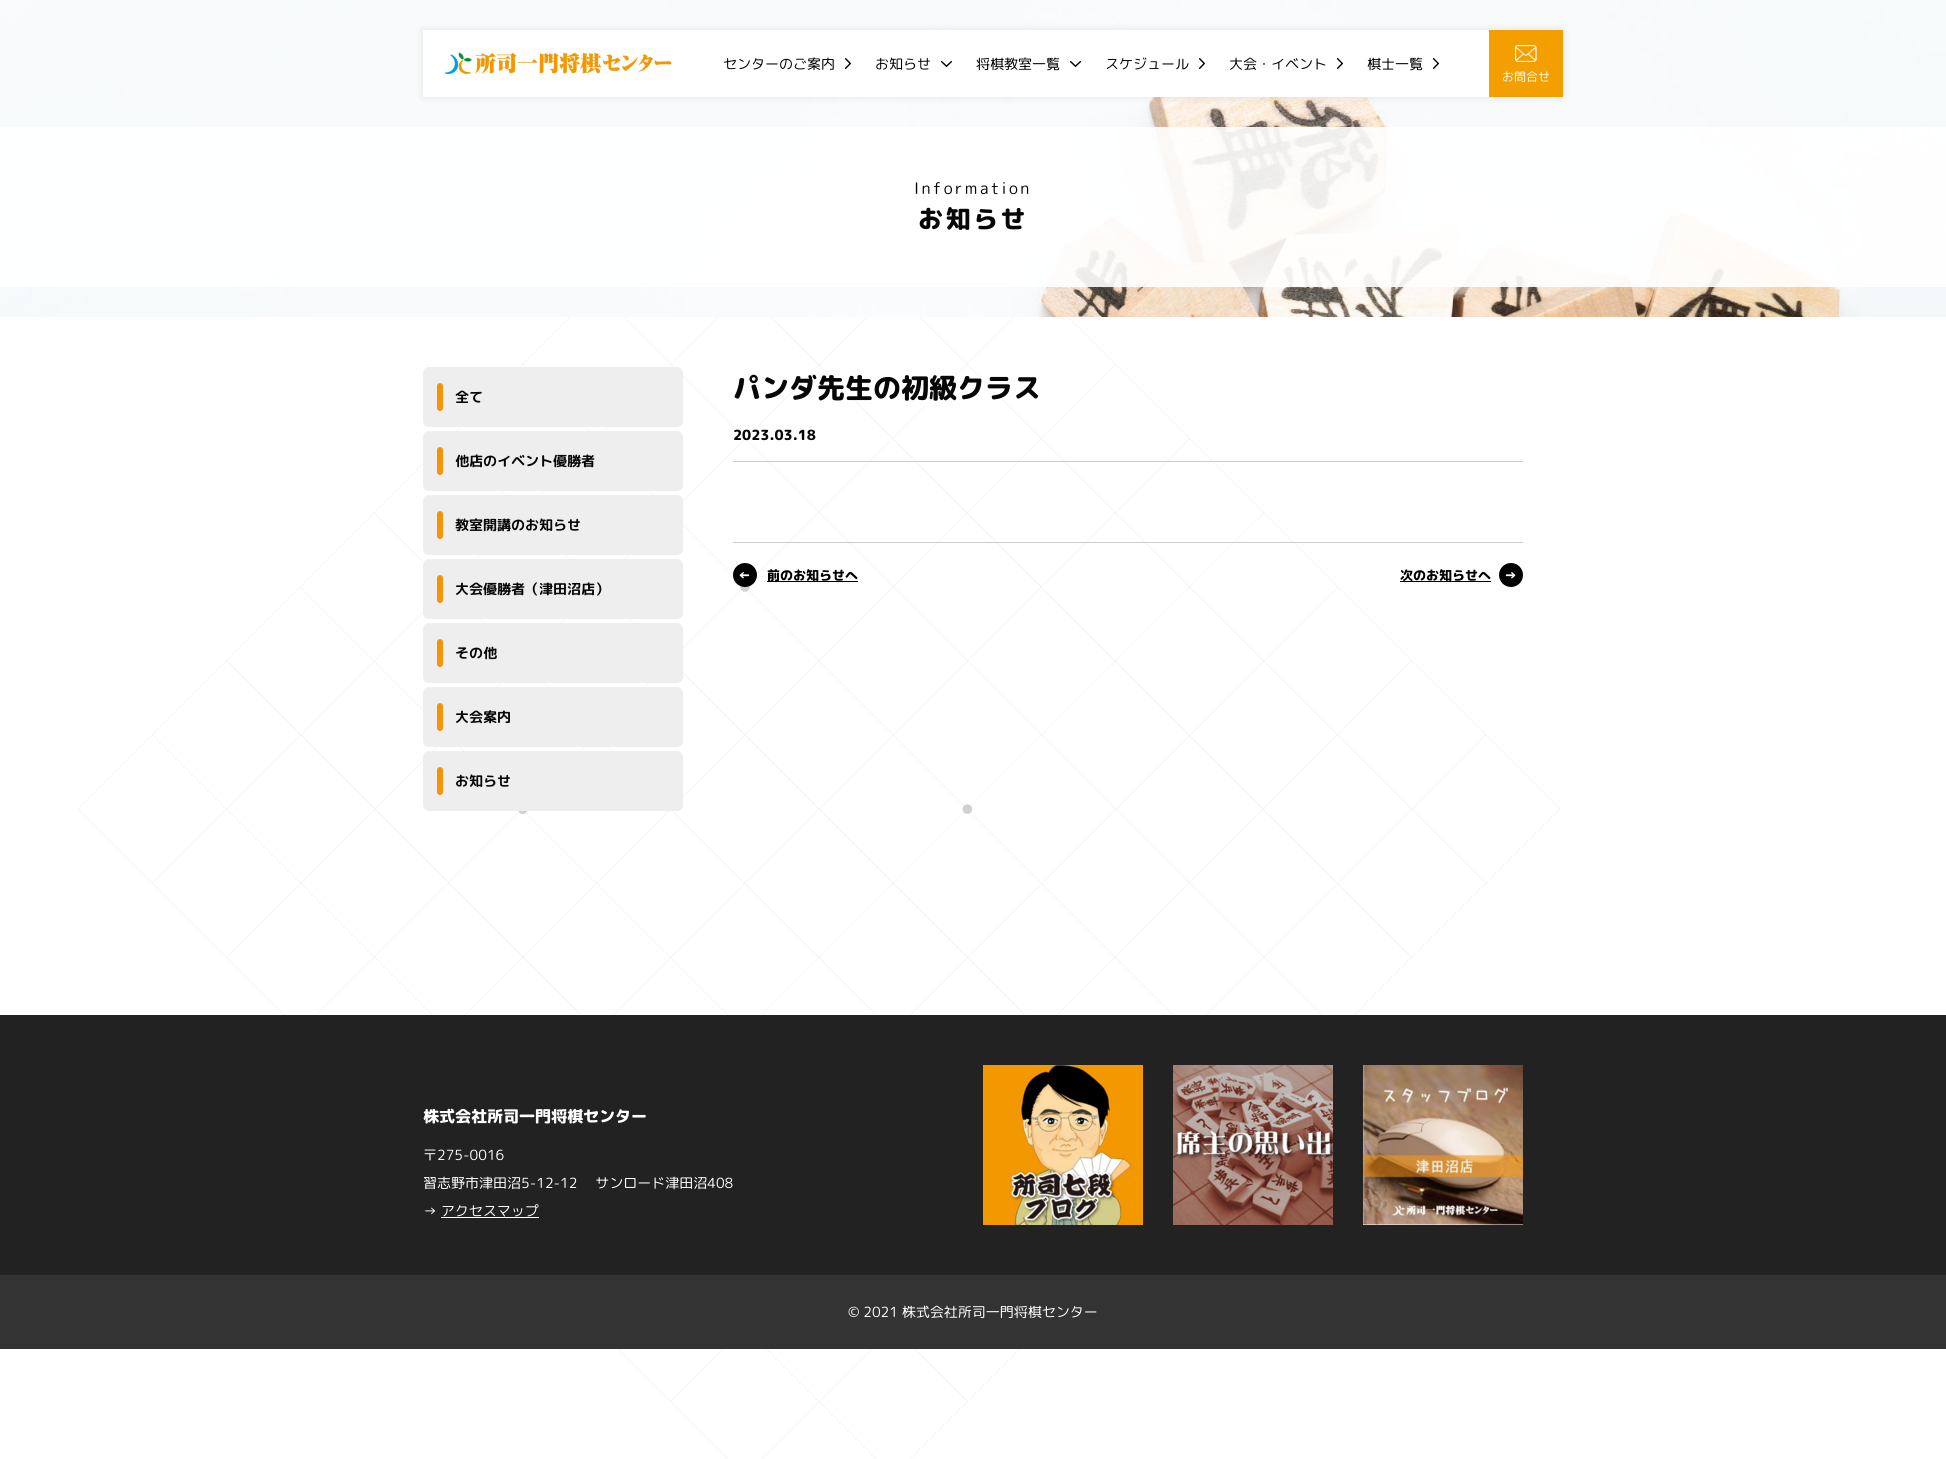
import math
import cairocffi as cairo

surface = cairo.ImageSurface(cairo.FORMAT_RGB24, 1946, 1459)
ctx = cairo.Context(surface)
options = cairo.FontOptions()
options.set_hint_metrics(cairo.HINT_METRICS_OFF)
options.set_hint_style(cairo.HINT_STYLE_NONE)
ctx.set_font_options(options)
ctx.set_miter_limit(4)


def rgb(r, g, b):
    ctx.set_source_rgb(r / 255, g / 255, b / 255)


def face(family, size, italic, bold):
    ctx.select_font_face(family, cairo.FONT_SLANT_ITALIC if italic else cairo.FONT_SLANT_NORMAL, cairo.FONT_WEIGHT_BOLD if bold else cairo.FONT_WEIGHT_NORMAL)
    ctx.set_font_size(size)


def label(x, y, s):
    ctx.move_to(x, y)
    ctx.show_text(s)


def tracked(x, y, s, letter, word):
    ctx.move_to(x, y)
    for ch in s:
        ctx.show_text(ch)
        ctx.rel_move_to(letter + word * (ch == ' '), 0)


def rect(x, y, w, h):
    ctx.rectangle(x, y, w, h)
    ctx.fill()


def rrect(x, y, w, h, r):
    ctx.new_sub_path()
    for i, (u, v) in enumerate([(x + w - r, y + h - r), (x + r, y + h - r), (x + r, y + r), (x + w - r, y + r)]):
        ctx.arc(u, v, r, i * math.pi / 2, (i + 1) * math.pi / 2)
    ctx.close_path()


def soft_shadow(x, y, w, h, r, blur, alpha):
    ctx.push_group_with_content(cairo.CONTENT_ALPHA)
    ctx.set_operator(cairo.OPERATOR_SOURCE)
    for i in range(15, -16, -2):
        e = blur * i / 6
        if min(w, h) + 2 * e > 0:
            ctx.set_source_rgba(0, 0, 0, alpha * math.erfc((i - 1) / 8.5) / 2)
            rrect(x - e, y - e, w + 2 * e, h + 2 * e, max(0, min(r + e + blur * .6, min(w, h) / 2 + e)))
            ctx.fill()
    ctx.mask(ctx.pop_group())


def image(path, x, y, w, h):
    ctx.save()
    ctx.set_source_surface(cairo.ImageSurface.create_from_png(path), x, y)
    ctx.rectangle(x, y, w, h)
    ctx.fill()
    ctx.restore()


rgb(255, 255, 255)
ctx.paint()
image('image0.png', 78, 317, 1482, 1142)
image('image5.png', 0, 0, 1946, 317)
rgb(0, 0, 0)
soft_shadow(423, 30, 1140, 67, 0, 4, 0.1)
rgb(255, 255, 255)
rect(423, 30, 1066, 67)
image('image1.png', 443, 51, 229, 24)
face('Rounded Mplus 1c', 14, 0, 0)
rgb(0, 0, 0)
label(723, 69, 'センターのご案内')
image('image2.png', 845, 58, 6, 11)
label(875, 69, 'お知らせ')
image('image3.png', 941, 61, 11, 6)
label(976, 69, '将棋教室一覧')
image('image3.png', 1070, 61, 11, 6)
label(1105, 69, 'スケジュール')
image('image2.png', 1199, 58, 6, 11)
label(1229, 69, '大会・イベント')
image('image2.png', 1337, 58, 6, 11)
label(1367, 69, '棋士一覧')
image('image2.png', 1433, 58, 6, 11)
rgb(243, 159, 0)
rect(1489, 30, 74, 67)
image('image4.png', 1515, 45, 22, 17)
face('Rounded Mplus 1c', 12, 0, 0)
rgb(255, 255, 255)
label(1502, 81, 'お問合せ')
ctx.set_source_rgba(1, 1, 1, 0.9)
rect(0, 127, 1946, 160)
face('Rounded Mplus 1c', 16, 0, 0)
rgb(7, 7, 7)
tracked(914, 194, 'Information', 2.5, 0)
face('Rounded Mplus 1c ExtraBold', 25, 0, 0)
tracked(918, 228, 'お知らせ', 2.5, 0)
rgb(238, 238, 238)
rrect(423, 367, 260, 60, 6)
ctx.fill()
rgb(246, 148, 1)
rrect(437, 383, 6, 28, 3)
ctx.fill()
face('Rounded Mplus 1c Bold', 14, 0, 1)
rgb(7, 7, 7)
label(455, 402, '全て')
rgb(238, 238, 238)
rrect(423, 431, 260, 60, 6)
ctx.fill()
rgb(246, 148, 1)
rrect(437, 447, 6, 28, 3)
ctx.fill()
rgb(7, 7, 7)
label(455, 466, '他店のイベント優勝者')
rgb(238, 238, 238)
rrect(423, 495, 260, 60, 6)
ctx.fill()
rgb(246, 148, 1)
rrect(437, 511, 6, 28, 3)
ctx.fill()
rgb(7, 7, 7)
label(455, 530, '教室開講のお知らせ')
rgb(238, 238, 238)
rrect(423, 559, 260, 60, 6)
ctx.fill()
rgb(246, 148, 1)
rrect(437, 575, 6, 28, 3)
ctx.fill()
rgb(7, 7, 7)
label(455, 594, '大会優勝者（津田沼店）')
rgb(238, 238, 238)
rrect(423, 623, 260, 60, 6)
ctx.fill()
rgb(246, 148, 1)
rrect(437, 639, 6, 28, 3)
ctx.fill()
rgb(7, 7, 7)
label(455, 658, 'その他')
rgb(238, 238, 238)
rrect(423, 687, 260, 60, 6)
ctx.fill()
rgb(246, 148, 1)
rrect(437, 703, 6, 28, 3)
ctx.fill()
rgb(7, 7, 7)
label(455, 722, '大会案内')
rgb(238, 238, 238)
rrect(423, 751, 260, 60, 6)
ctx.fill()
rgb(246, 148, 1)
rrect(437, 767, 6, 28, 3)
ctx.fill()
rgb(7, 7, 7)
label(455, 786, 'お知らせ')
face('Rounded Mplus 1c ExtraBold', 28, 0, 0)
label(733, 398, 'パンダ先生の初級クラス')
face('Rounded Mplus 1c ExtraBold', 14, 0, 0)
label(733, 440, '2023.03.18')
rgb(204, 204, 204)
rect(733, 461, 790, 1)
rect(733, 542, 790, 1)
rgb(0, 0, 0)
ctx.new_path()
ctx.arc(745, 575, 12, 0, 2 * math.pi)
ctx.fill()
face('Rounded Mplus 1c ExtraBold', 13, 0, 0)
rgb(255, 255, 255)
label(738, 580, '←')
rgb(0, 0, 0)
rect(767, 581, 91, 1)
label(767, 580, '前のお知らせへ')
label(1400, 580, '次のお知らせへ')
rect(1400, 581, 91, 1)
ctx.new_path()
ctx.arc(1511, 575, 12, 0, 2 * math.pi)
ctx.fill()
rgb(255, 255, 255)
label(1504, 580, '→')
rgb(34, 34, 34)
rect(0, 1015, 1946, 260)
face('Rounded Mplus 1c ExtraBold', 16, 0, 0)
rgb(255, 255, 255)
label(423, 1122, '株式会社所司一門将棋センター')
face('Rounded Mplus 1c', 14, 0, 0)
label(423, 1160, '〒275-0016')
label(423, 1188, '習志野市津田沼5-12-12 　サンロード津田沼408')
label(423, 1216, '→ アクセスマップ')
rect(441, 1217, 98, 1)
image('image6.png', 983, 1065, 160, 160)
image('image7.png', 1173, 1065, 160, 160)
image('image8.png', 1363, 1065, 160, 160)
rgb(51, 51, 51)
rect(0, 1275, 1946, 74)
rgb(255, 255, 255)
label(848, 1317, '© 2021 株式会社所司一門将棋センター')
surface.write_to_png('render.png')
